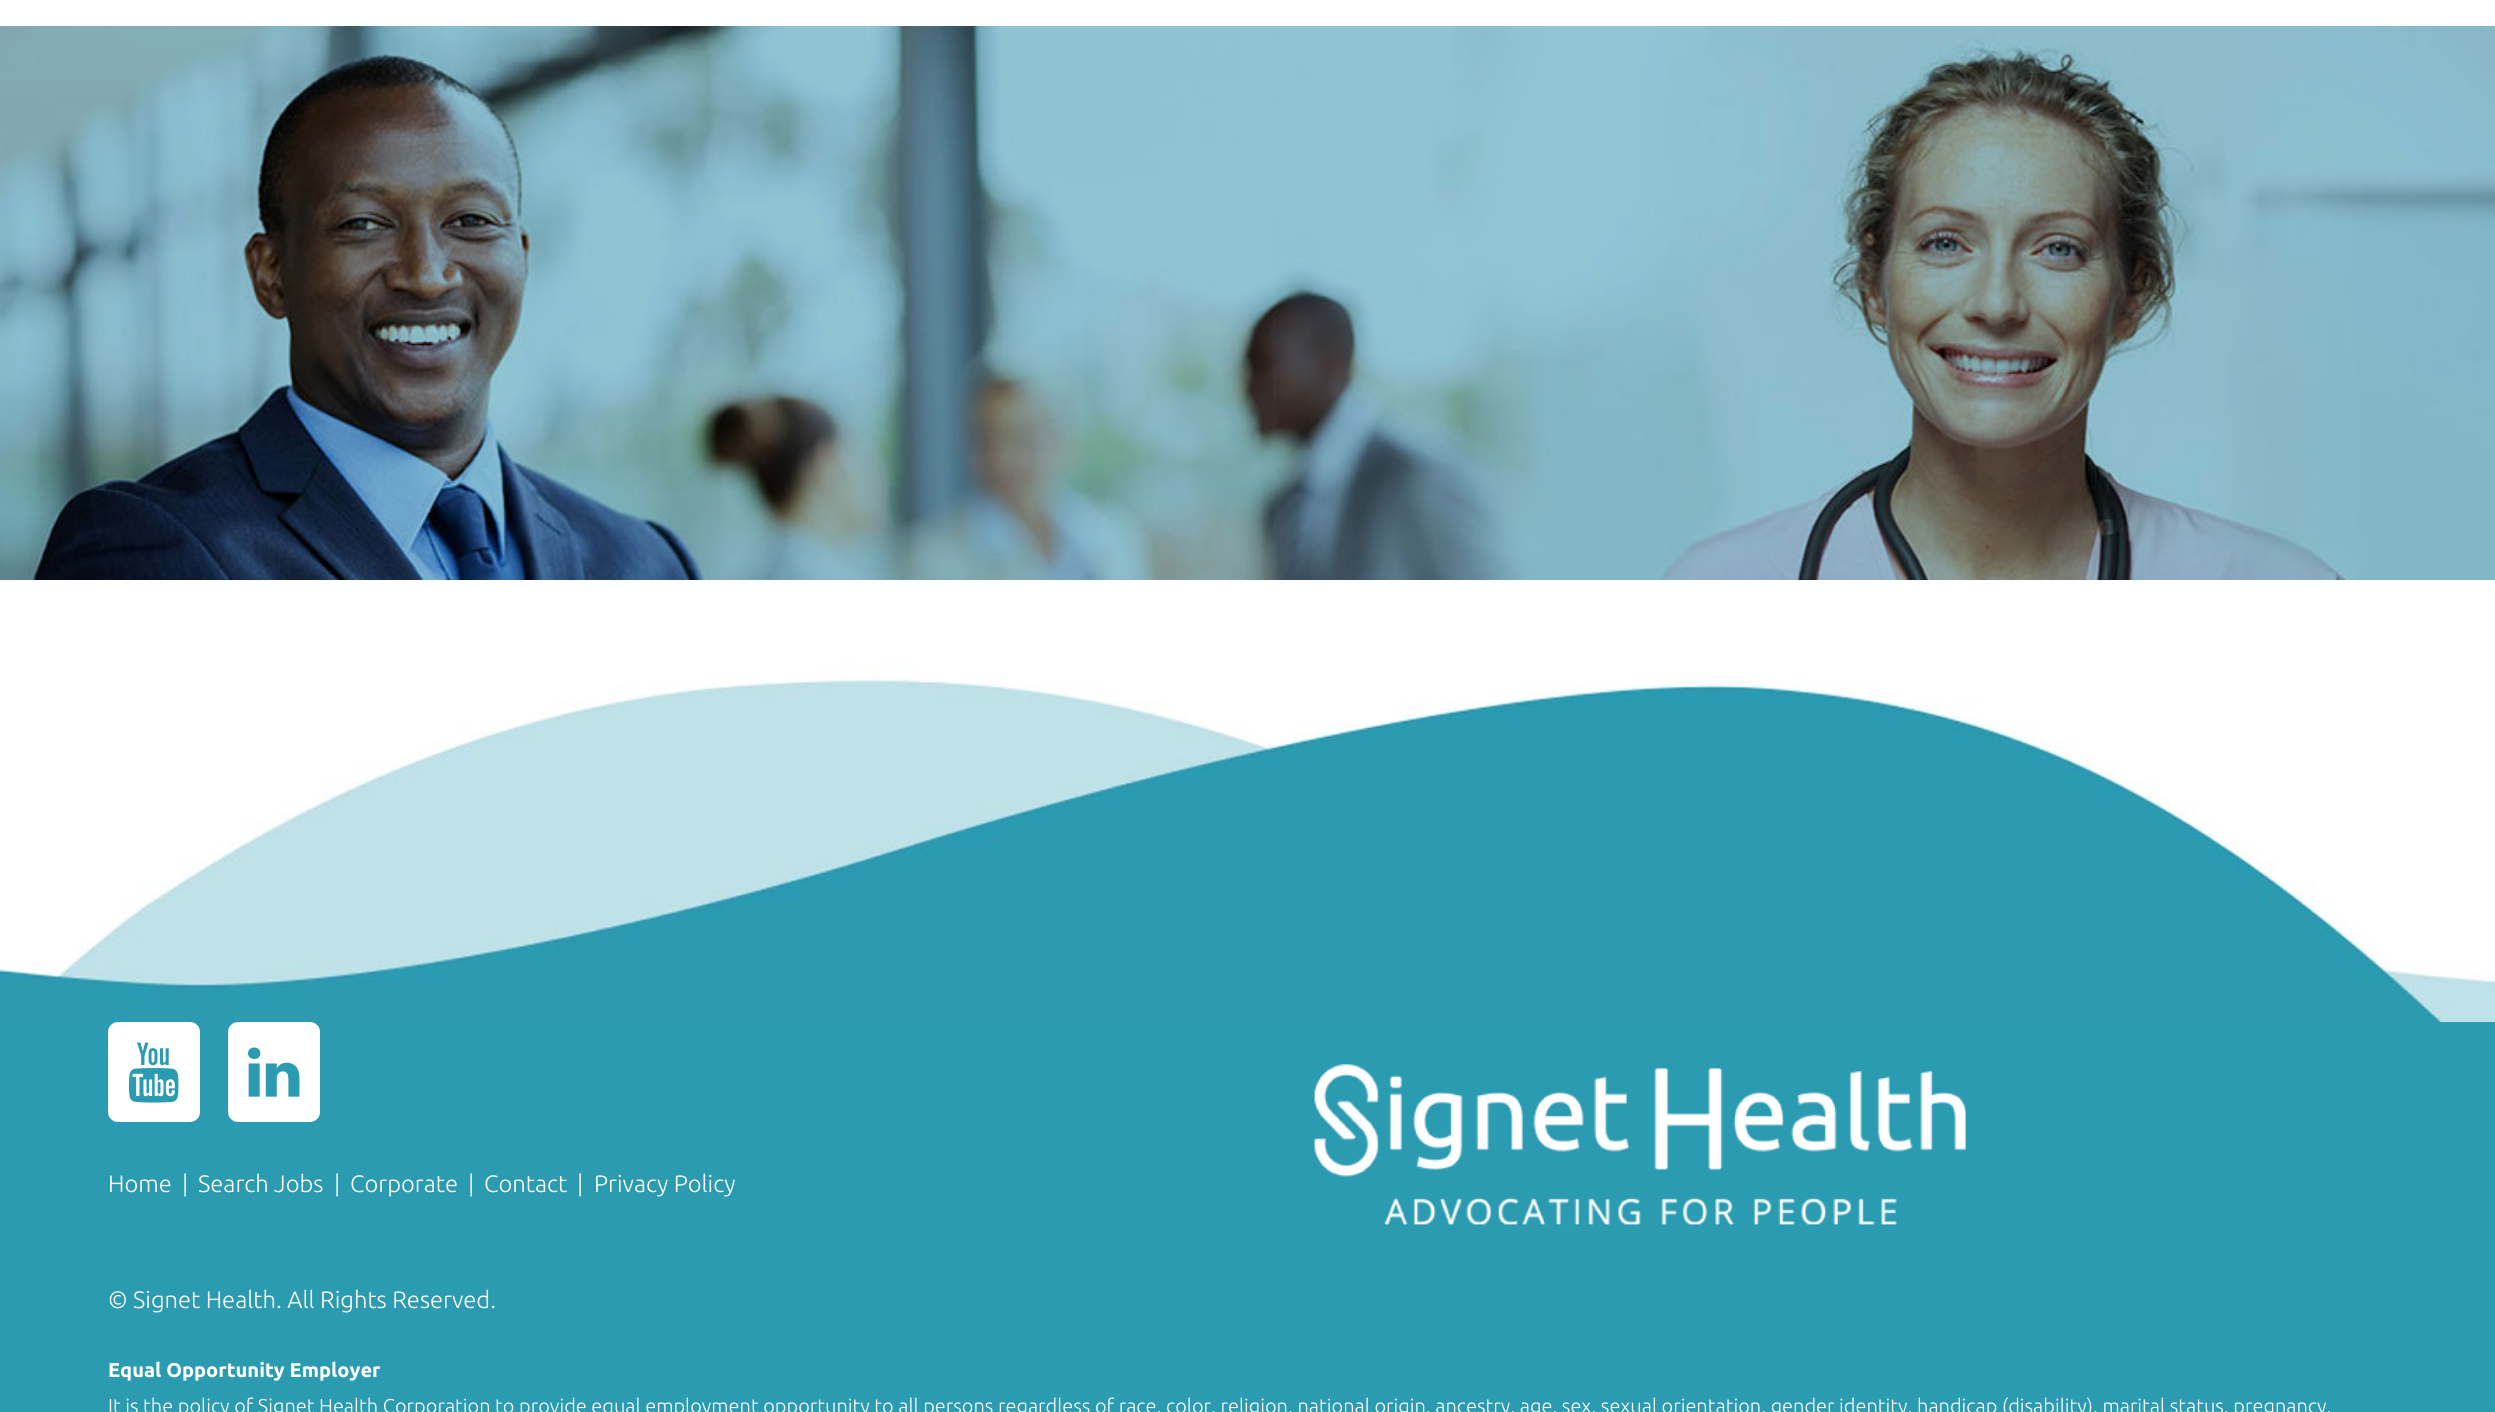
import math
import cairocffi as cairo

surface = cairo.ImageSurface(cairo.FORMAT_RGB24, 2495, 1412)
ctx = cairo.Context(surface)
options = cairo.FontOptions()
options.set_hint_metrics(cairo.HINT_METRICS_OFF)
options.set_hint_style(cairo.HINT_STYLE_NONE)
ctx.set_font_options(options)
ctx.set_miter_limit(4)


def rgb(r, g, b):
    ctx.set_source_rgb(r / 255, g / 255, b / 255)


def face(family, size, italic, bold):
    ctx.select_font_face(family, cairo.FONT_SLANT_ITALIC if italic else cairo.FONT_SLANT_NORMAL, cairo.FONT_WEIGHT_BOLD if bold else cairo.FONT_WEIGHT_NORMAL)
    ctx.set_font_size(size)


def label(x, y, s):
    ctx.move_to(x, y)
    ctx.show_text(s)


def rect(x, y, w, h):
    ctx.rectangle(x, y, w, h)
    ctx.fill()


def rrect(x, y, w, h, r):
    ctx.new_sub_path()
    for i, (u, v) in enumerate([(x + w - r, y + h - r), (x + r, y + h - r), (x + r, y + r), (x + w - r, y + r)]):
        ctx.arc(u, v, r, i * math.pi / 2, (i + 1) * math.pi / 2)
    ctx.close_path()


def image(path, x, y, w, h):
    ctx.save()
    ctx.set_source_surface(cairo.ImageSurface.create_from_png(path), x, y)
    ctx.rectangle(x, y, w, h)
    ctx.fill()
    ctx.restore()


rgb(255, 255, 255)
ctx.paint()
image('image0.png', 0, 26, 2495, 554)
rgb(43, 155, 178)
rect(0, 1022, 2495, 390)
image('image1.png', 0, 662, 2495, 360)
image('image2.png', 1314, 1064, 652, 161)
rgb(255, 255, 255)
rrect(108, 1022, 92, 100, 10)
ctx.fill()
image('image3.png', 128, 1042, 51, 61)
rrect(228, 1022, 92, 100, 10)
ctx.fill()
image('image4.png', 248, 1047, 52, 50)
face('Ubuntu Light', 23.75, 0, 0)
label(108, 1192, 'Home')
label(182, 1192, '|')
label(198, 1192, 'Search Jobs')
label(334, 1192, '|')
label(350, 1192, 'Corporate')
label(468, 1192, '|')
label(484, 1192, 'Contact')
label(577, 1192, '|')
label(594, 1192, 'Privacy Policy')
label(108, 1308, '© Signet Health. All Rights Reserved.')
face('Ubuntu', 20, 0, 1)
label(108, 1377, 'Equal Opportunity Employer')
face('Ubuntu Light', 20, 0, 0)
label(108, 1413, 'It is the policy of Signet Health Corporation to provide equal employment opportunity to all persons regardless of race, color, religion, national origin, ancestry, age, sex, sexual orientation, gender identity, handicap (disability), marital status, pregnancy,')
surface.write_to_png('render.png')
